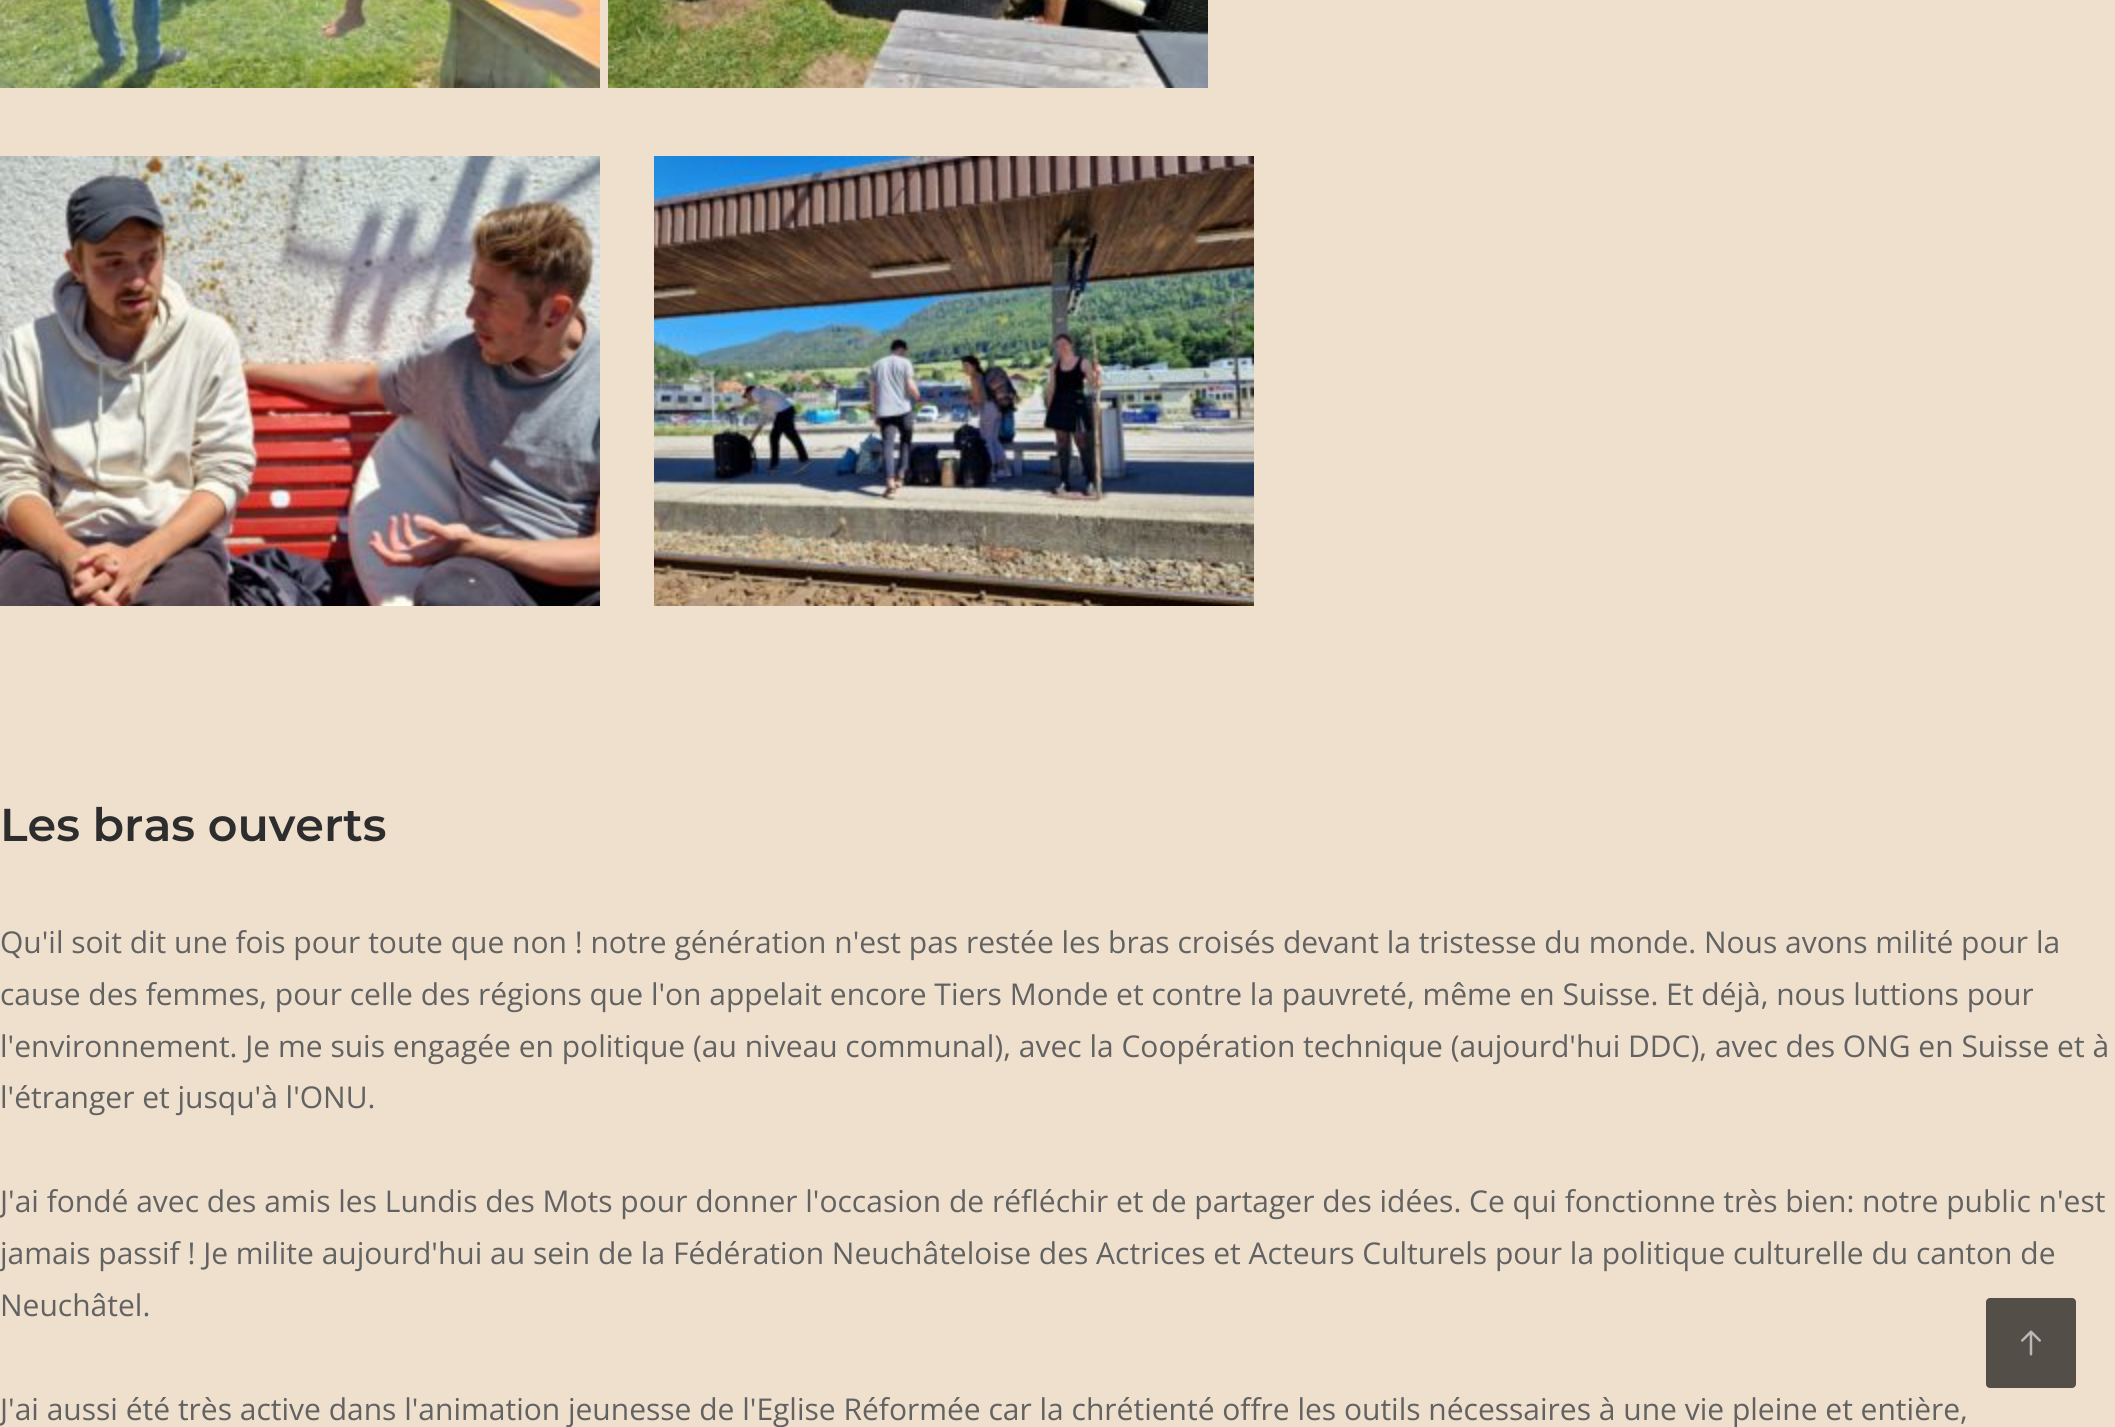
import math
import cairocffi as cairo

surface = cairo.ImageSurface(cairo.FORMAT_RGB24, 2115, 1427)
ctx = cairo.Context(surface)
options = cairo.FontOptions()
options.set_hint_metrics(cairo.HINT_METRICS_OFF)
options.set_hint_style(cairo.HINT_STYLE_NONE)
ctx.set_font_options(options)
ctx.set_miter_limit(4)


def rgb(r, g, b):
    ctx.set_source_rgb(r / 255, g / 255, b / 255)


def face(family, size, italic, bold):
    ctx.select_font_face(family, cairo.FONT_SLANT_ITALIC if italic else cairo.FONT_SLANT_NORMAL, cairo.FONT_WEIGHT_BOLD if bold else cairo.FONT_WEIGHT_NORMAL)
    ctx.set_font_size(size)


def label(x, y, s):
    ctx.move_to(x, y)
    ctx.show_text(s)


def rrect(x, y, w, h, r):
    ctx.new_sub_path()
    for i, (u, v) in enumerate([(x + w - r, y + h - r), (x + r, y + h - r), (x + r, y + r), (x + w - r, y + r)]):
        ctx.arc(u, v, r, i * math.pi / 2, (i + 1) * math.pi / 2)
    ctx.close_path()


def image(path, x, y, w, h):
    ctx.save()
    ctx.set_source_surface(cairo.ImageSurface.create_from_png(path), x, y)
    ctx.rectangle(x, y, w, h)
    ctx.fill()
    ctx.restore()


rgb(238, 224, 205)
ctx.paint()
image('image0.png', 0, 0, 600, 88)
image('image1.png', 608, 0, 600, 88)
image('image2.png', 0, 156, 600, 450)
image('image3.png', 654, 156, 600, 450)
face('Montserrat SemiBold', 46, 0, 0)
rgb(45, 45, 45)
label(0, 841, 'Les bras ouverts')
face('Open Sans', 30, 0, 0)
rgb(98, 98, 98)
label(0, 953, 'Qu\'il soit dit une fois pour toute que non ! notre génération n\'est pas restée les bras croisés devant la tristesse du monde. Nous avons milité pour la')
label(0, 1005, 'cause des femmes, pour celle des régions que l\'on appelait encore Tiers Monde et contre la pauvreté, même en Suisse. Et déjà, nous luttions pour')
label(0, 1057, 'l\'environnement. Je me suis engagée en politique (au niveau communal), avec la Coopération technique (aujourd\'hui DDC), avec des ONG en Suisse et à')
label(0, 1108, 'l\'étranger et jusqu\'à l\'ONU.')
label(0, 1212, 'J\'ai fondé avec des amis les Lundis des Mots pour donner l\'occasion de réfléchir et de partager des idées. Ce qui fonctionne très bien: notre public n\'est')
label(0, 1264, 'jamais passif ! Je milite aujourd\'hui au sein de la Fédération Neuchâteloise des Actrices et Acteurs Culturels pour la politique culturelle du canton de')
label(0, 1316, 'Neuchâtel.')
label(0, 1420, 'J\'ai aussi été très active dans l\'animation jeunesse de l\'Eglise Réformée car la chrétienté offre les outils nécessaires à une vie pleine et entière,')
rgb(83, 78, 72)
rrect(1986, 1298, 90, 90, 4)
ctx.fill()
image('image4.png', 2021, 1330, 20, 26)
surface.write_to_png('render.png')
